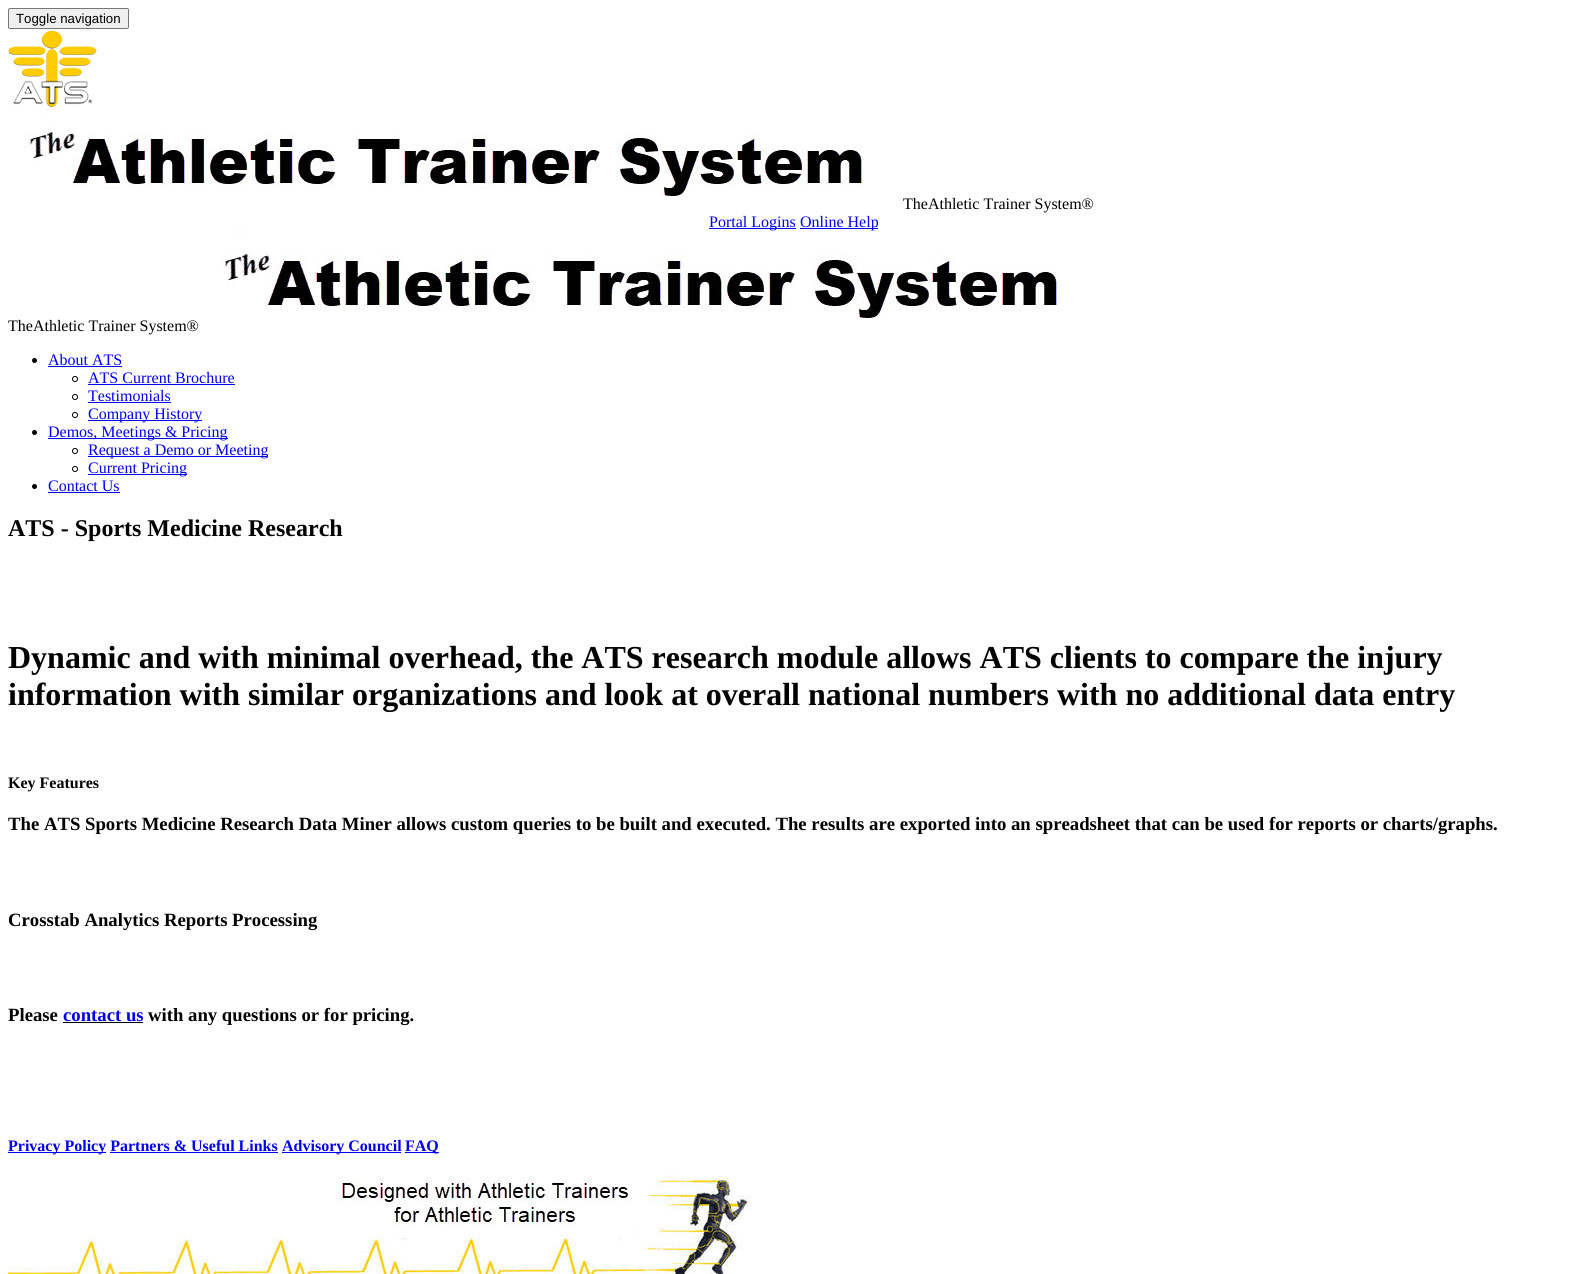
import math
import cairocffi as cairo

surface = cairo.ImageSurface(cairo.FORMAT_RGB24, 1587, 1274)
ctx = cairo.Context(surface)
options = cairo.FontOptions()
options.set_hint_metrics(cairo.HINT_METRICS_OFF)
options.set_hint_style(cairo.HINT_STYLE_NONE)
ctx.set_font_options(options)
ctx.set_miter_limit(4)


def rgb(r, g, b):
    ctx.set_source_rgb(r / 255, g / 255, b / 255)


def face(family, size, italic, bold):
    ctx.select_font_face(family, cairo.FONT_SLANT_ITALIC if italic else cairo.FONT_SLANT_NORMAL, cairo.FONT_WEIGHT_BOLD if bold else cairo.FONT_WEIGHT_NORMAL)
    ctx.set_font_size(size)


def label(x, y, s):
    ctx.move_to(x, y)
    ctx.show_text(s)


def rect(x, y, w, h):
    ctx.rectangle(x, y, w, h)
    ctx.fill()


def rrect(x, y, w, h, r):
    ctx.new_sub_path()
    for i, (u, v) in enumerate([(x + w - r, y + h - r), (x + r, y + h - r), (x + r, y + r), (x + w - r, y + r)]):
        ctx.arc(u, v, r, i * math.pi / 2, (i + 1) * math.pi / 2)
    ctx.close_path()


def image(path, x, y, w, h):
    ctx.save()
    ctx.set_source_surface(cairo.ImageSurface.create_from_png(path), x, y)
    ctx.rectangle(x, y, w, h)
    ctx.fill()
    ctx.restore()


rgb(255, 255, 255)
ctx.paint()
rgb(239, 239, 239)
rrect(8.5, 8.5, 120, 20, 1.5)
ctx.fill_preserve()
rgb(118, 118, 118)
ctx.set_line_width(1)
ctx.stroke()
face('Liberation Sans', 13.25, 0, 0)
rgb(0, 0, 0)
label(16, 23, 'Toggle navigation')
image('image0.png', 8, 30, 89, 78)
image('image1.png', 24, 109, 840, 88)
face('Liberation Serif', 16, 0, 0)
label(903, 209, 'TheAthletic Trainer System®')
rgb(0, 0, 238)
rect(709, 228, 87, 1)
label(709, 227, 'Portal Logins')
rect(800, 228, 78, 1)
label(800, 227, 'Online Help')
image('image1.png', 219, 231, 840, 88)
rgb(0, 0, 0)
label(8, 331, 'TheAthletic Trainer System®')
ctx.new_path()
ctx.arc(34.5, 360.5, 2.5, 0, 2 * math.pi)
ctx.fill()
rgb(0, 0, 238)
label(48, 365, 'About ATS')
rect(48, 366, 74, 1)
ctx.new_path()
ctx.arc(75, 379, 2.5, 0, 2 * math.pi)
rgb(0, 0, 0)
ctx.stroke()
rgb(0, 0, 238)
label(88, 383, 'ATS Current Brochure')
rect(88, 384, 147, 1)
ctx.new_path()
ctx.arc(75, 397, 2.5, 0, 2 * math.pi)
rgb(0, 0, 0)
ctx.stroke()
rgb(0, 0, 238)
label(88, 401, 'Testimonials')
rect(88, 402, 83, 1)
ctx.new_path()
ctx.arc(75, 415, 2.5, 0, 2 * math.pi)
rgb(0, 0, 0)
ctx.stroke()
rgb(0, 0, 238)
rect(88, 420, 114, 1)
label(88, 419, 'Company History')
rgb(0, 0, 0)
ctx.new_path()
ctx.arc(34.5, 432.5, 2.5, 0, 2 * math.pi)
ctx.fill()
rgb(0, 0, 238)
rect(48, 438, 180, 1)
label(48, 437, 'Demos, Meetings & Pricing')
ctx.new_path()
ctx.arc(75, 451, 2.5, 0, 2 * math.pi)
rgb(0, 0, 0)
ctx.stroke()
rgb(0, 0, 238)
rect(88, 456, 180, 1)
label(88, 455, 'Request a Demo or Meeting')
ctx.new_path()
ctx.arc(75, 469, 2.5, 0, 2 * math.pi)
rgb(0, 0, 0)
ctx.stroke()
rgb(0, 0, 238)
rect(88, 474, 99, 1)
label(88, 473, 'Current Pricing')
rgb(0, 0, 0)
ctx.new_path()
ctx.arc(34.5, 486.5, 2.5, 0, 2 * math.pi)
ctx.fill()
rgb(0, 0, 238)
label(48, 491, 'Contact Us')
rect(48, 492, 72, 1)
face('Liberation Serif', 24, 0, 1)
rgb(0, 0, 0)
label(8, 536, 'ATS - Sports Medicine Research')
face('Liberation Serif', 32, 0, 1)
label(8, 668, 'Dynamic and with minimal overhead, the ATS research module allows ATS clients to compare the injury')
label(8, 705, 'information with similar organizations and look at overall national numbers with no additional data entry')
face('Liberation Serif', 16, 0, 1)
label(8, 788, 'Key Features')
face('Liberation Serif', 18.72, 0, 1)
label(8, 830, 'The ATS Sports Medicine Research Data Miner allows custom queries to be built and executed. The results are exported into an spreadsheet that can be used for reports or charts/graphs.')
label(8, 926, 'Crosstab Analytics Reports Processing')
label(8, 1021, 'Please')
rgb(0, 0, 238)
label(63, 1021, 'contact us')
rgb(0, 0, 0)
rect(63, 1022, 80, 1)
label(148, 1021, 'with any questions or for pricing.')
rgb(0, 0, 238)
rect(8, 1152, 98, 1)
face('Liberation Serif', 16, 0, 1)
label(8, 1151, 'Privacy Policy Partners & Useful Links')
rect(282, 1152, 119, 1)
label(282, 1151, 'Advisory Council')
rect(405, 1152, 34, 1)
label(405, 1151, 'FAQ')
rect(110, 1152, 168, 1)
image('image2.png', 8, 1174, 744, 100)
surface.write_to_png('render.png')
